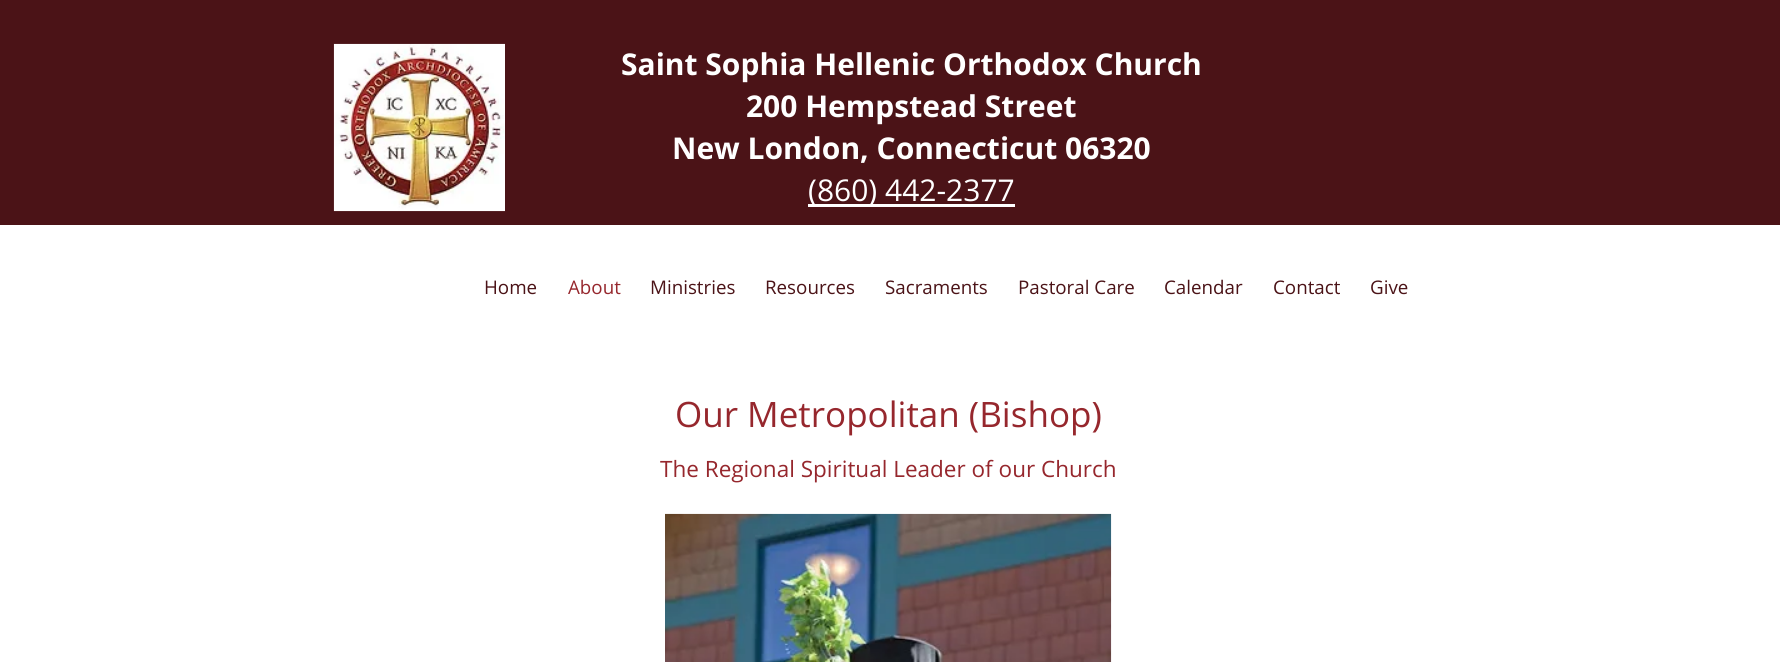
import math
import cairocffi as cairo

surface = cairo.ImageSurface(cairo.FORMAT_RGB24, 1780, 662)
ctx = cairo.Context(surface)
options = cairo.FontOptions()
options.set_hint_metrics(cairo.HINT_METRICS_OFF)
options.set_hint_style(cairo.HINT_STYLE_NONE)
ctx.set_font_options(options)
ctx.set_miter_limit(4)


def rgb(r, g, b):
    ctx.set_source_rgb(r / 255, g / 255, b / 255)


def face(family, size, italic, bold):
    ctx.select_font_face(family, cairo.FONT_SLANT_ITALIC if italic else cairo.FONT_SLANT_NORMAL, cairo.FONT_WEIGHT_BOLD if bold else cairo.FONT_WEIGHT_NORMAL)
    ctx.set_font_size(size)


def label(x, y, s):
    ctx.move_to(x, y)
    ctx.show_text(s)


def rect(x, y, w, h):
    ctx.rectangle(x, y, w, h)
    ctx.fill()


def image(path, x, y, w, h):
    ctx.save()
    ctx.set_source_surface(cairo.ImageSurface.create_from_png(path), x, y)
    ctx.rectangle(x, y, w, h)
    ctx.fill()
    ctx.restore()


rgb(255, 255, 255)
ctx.paint()
rgb(75, 19, 23)
rect(0, 0, 1780, 225)
image('image0.png', 333, 43, 172, 169)
face('Open Sans', 30, 0, 1)
rgb(255, 255, 255)
label(621, 75, 'Saint Sophia Hellenic Orthodox Church')
label(746, 117, '200 Hempstead Street')
label(672, 159, 'New London, Connecticut 06320')
rect(808, 204, 207, 3)
face('Open Sans', 30, 0, 0)
label(808, 201, '(860) 442-2377')
face('Open Sans', 18.75, 0, 0)
rgb(75, 19, 23)
label(484, 294, 'Home')
rgb(150, 39, 45)
label(568, 294, 'About')
rgb(75, 19, 23)
label(650, 294, 'Ministries')
label(765, 294, 'Resources')
label(885, 294, 'Sacraments')
label(1018, 294, 'Pastoral Care')
label(1164, 294, 'Calendar')
label(1273, 294, 'Contact')
label(1370, 294, 'Give')
face('Open Sans', 35, 0, 0)
rgb(150, 39, 45)
label(675, 427, 'Our Metropolitan (Bishop)')
face('Open Sans', 22.5, 0, 0)
label(660, 477, 'The Regional Spiritual Leader of our Church')
image('image1.png', 665, 513, 447, 149)
surface.write_to_png('render.png')
